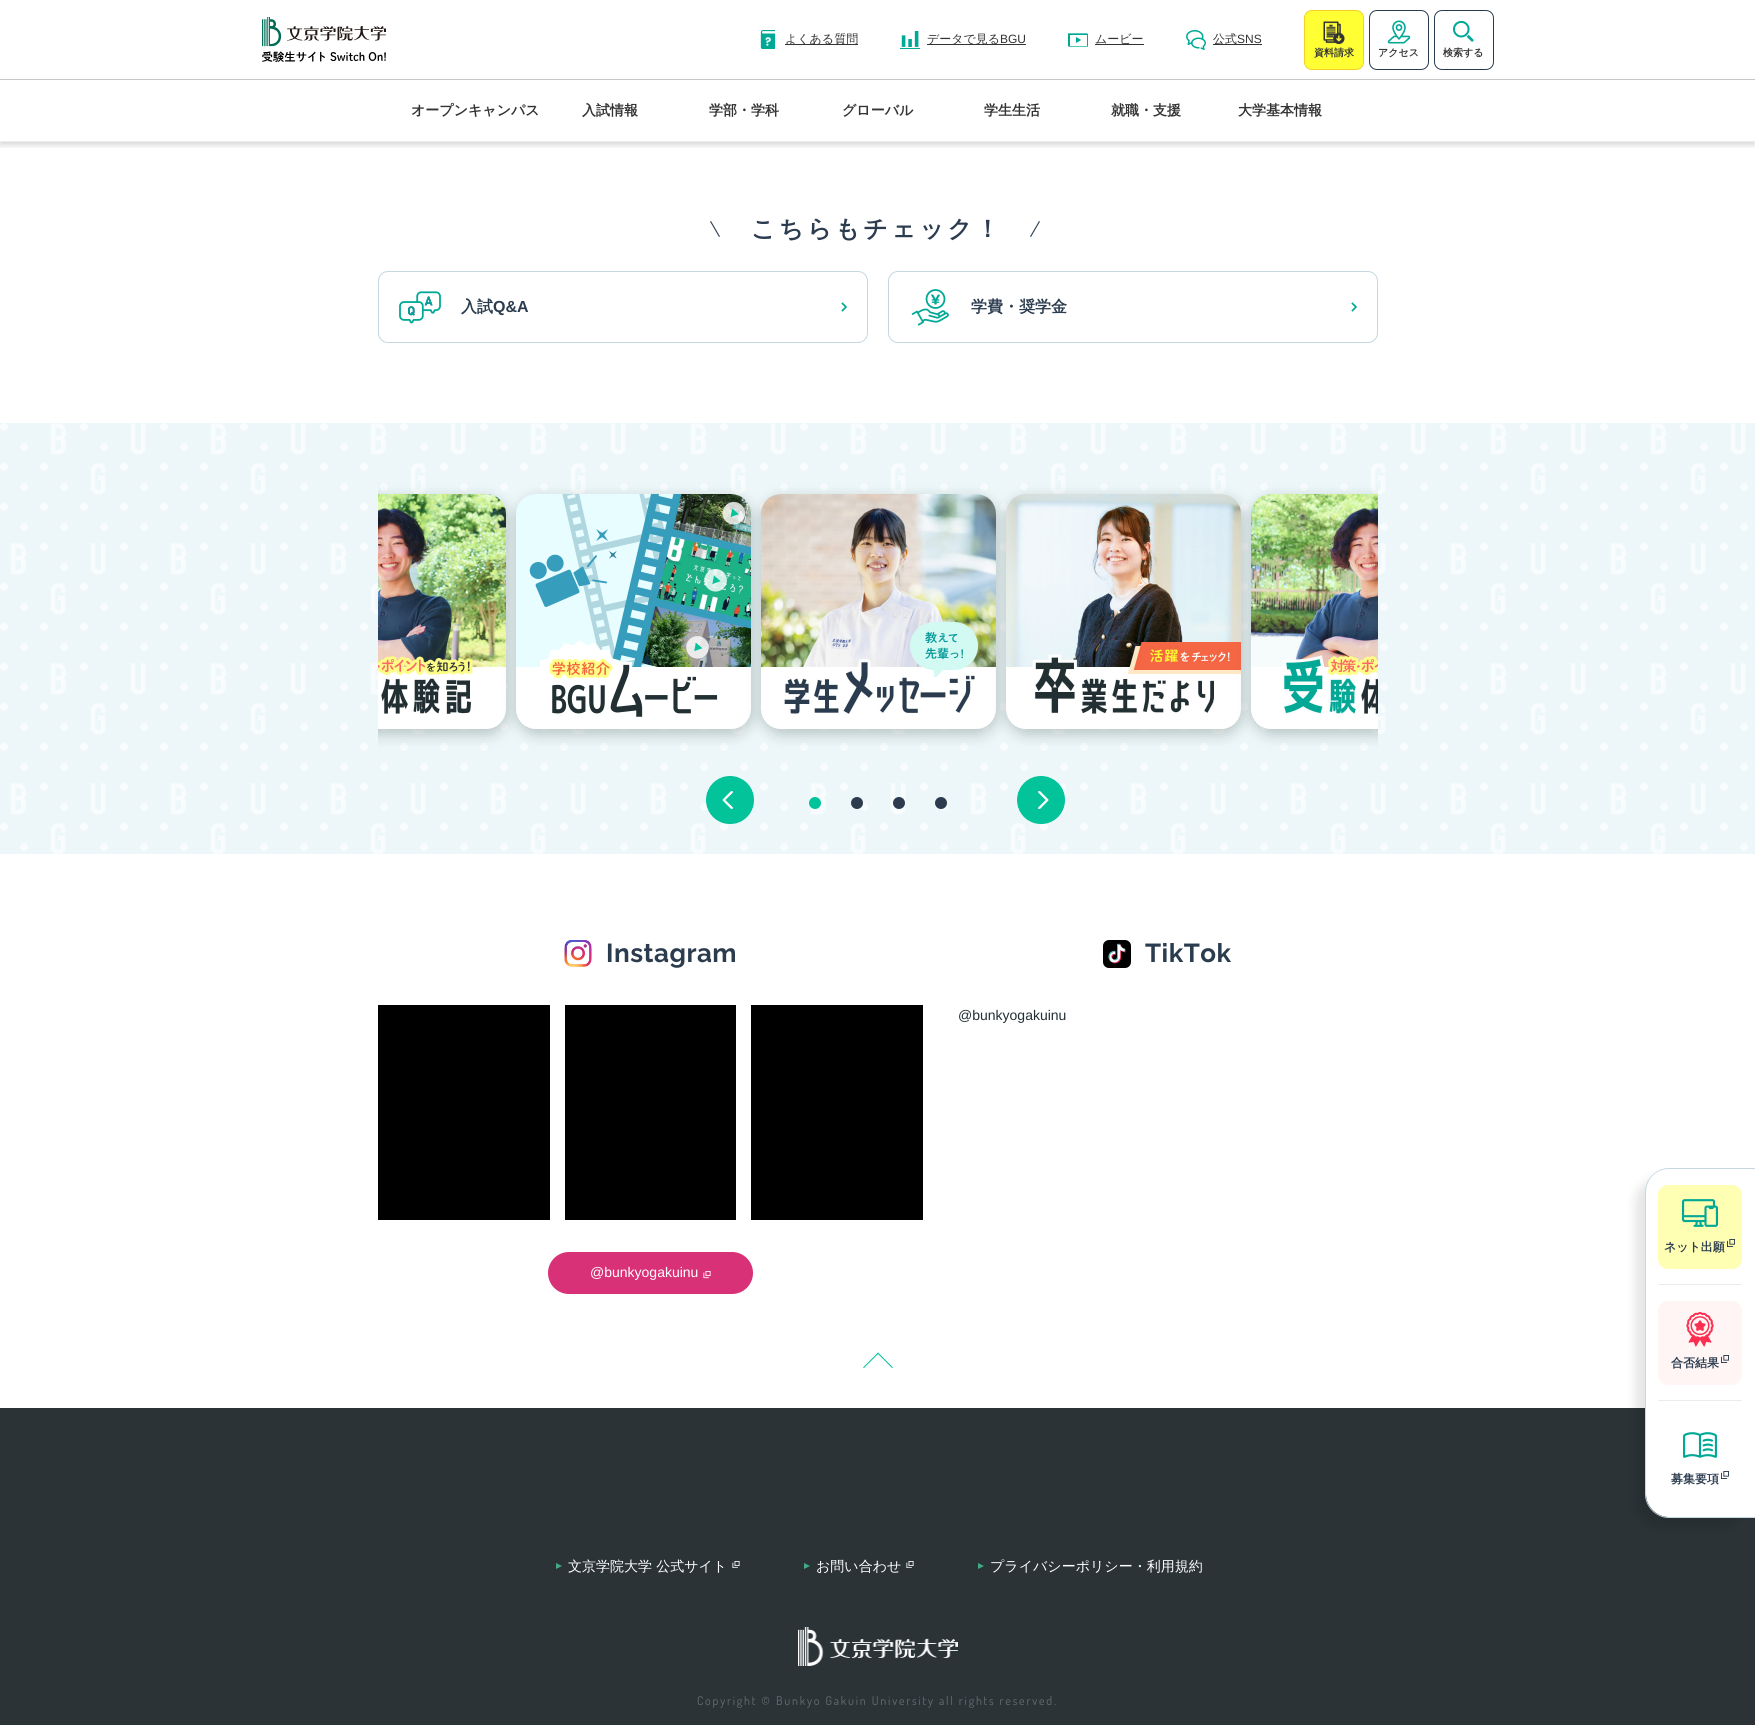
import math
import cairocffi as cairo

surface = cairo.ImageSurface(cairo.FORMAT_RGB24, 1755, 1725)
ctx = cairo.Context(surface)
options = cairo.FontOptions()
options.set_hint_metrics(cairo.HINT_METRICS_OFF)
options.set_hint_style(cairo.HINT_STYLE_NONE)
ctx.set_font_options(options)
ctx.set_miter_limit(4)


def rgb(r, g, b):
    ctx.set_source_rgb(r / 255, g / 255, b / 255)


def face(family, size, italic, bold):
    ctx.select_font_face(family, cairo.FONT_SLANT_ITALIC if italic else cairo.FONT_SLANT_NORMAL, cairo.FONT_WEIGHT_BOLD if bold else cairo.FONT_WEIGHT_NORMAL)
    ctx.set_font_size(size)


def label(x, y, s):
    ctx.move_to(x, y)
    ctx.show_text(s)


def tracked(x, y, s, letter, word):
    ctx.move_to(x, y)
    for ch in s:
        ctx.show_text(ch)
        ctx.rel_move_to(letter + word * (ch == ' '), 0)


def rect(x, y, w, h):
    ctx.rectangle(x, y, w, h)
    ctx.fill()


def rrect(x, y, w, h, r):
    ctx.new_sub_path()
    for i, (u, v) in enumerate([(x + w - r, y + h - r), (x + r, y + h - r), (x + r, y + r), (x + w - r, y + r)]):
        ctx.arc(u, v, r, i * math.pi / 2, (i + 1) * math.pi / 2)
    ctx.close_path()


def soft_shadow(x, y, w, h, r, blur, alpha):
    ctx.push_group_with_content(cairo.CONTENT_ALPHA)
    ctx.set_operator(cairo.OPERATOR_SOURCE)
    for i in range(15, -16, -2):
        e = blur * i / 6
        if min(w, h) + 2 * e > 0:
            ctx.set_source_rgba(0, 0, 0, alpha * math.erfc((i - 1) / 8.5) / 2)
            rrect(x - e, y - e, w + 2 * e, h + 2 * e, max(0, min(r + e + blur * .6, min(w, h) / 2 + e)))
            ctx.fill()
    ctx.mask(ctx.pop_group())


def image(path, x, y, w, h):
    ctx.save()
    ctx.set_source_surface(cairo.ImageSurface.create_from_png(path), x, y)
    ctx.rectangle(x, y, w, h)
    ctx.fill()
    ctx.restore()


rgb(255, 255, 255)
ctx.paint()
ctx.save()
ctx.rectangle(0, 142, 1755, 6)
ctx.clip()
rgb(0, 0, 0)
soft_shadow(0, 83, 1755, 62, 0, 3, 0.16)
ctx.restore()
rgb(255, 255, 255)
rect(5, 78, 1745, 1)
rgb(198, 198, 198)
rect(0, 79, 1755, 1)
image('image0.png', 262, 17, 124, 45)
image('image1.png', 760, 30, 16, 19)
rgb(51, 51, 51)
rect(785, 44, 73, 1)
face('WenQuanYi Zen Hei Medium', 12, 0, 0)
label(785, 43, 'よくある質問')
image('image2.png', 900, 31, 20, 18)
rect(927, 44, 99, 1)
label(927, 43, 'データで見る')
face('Liberation Sans', 12, 0, 0)
label(1000, 43, 'BGU')
image('image3.png', 1068, 33, 20, 14)
face('WenQuanYi Zen Hei Medium', 12, 0, 0)
label(1095, 43, 'ムービー')
rect(1095, 44, 49, 1)
image('image4.png', 1186, 30, 20, 20)
rect(1213, 44, 49, 1)
label(1213, 43, '公式')
face('Liberation Sans', 12, 0, 0)
label(1237, 43, 'SNS')
rgb(255, 255, 51)
rrect(1304.5, 10.5, 59, 59, 7.5)
ctx.fill_preserve()
rgb(244, 210, 37)
ctx.set_line_width(1)
ctx.stroke()
image('image5.png', 1323, 21, 22, 23)
face('WenQuanYi Zen Hei', 10, 0, 1)
rgb(51, 51, 51)
label(1314, 56, '資料請求')
rrect(1369.5, 10.5, 59, 59, 7.5)
rgb(43, 60, 79)
ctx.stroke()
image('image6.png', 1387, 20, 24, 24)
rgb(51, 51, 51)
label(1378, 56, 'アクセス')
rrect(1434.5, 10.5, 59, 59, 7.5)
rgb(43, 60, 79)
ctx.stroke()
image('image7.png', 1453, 20, 21, 22)
rgb(51, 51, 51)
label(1443, 56, '検索する')
rgb(235, 236, 237)
rect(0, 141, 1755, 1)
face('WenQuanYi Zen Hei', 14, 0, 1)
rgb(51, 51, 51)
label(411, 115, 'オープンキャンパス')
label(582, 115, '入試情報')
label(709, 115, '学部・学科')
label(842, 115, 'グローバル')
label(984, 115, '学生生活')
label(1111, 115, '就職・支援')
label(1238, 115, '大学基本情報')
rgb(43, 60, 79)
ctx.new_path()
ctx.move_to(711, 221)
ctx.line_to(720, 236.5)
ctx.line_to(719, 237)
ctx.line_to(710, 221.5)
ctx.close_path()
ctx.fill()
face('WenQuanYi Zen Hei', 24, 0, 1)
tracked(751, 237, 'こちらもチェック！', 3.5, 0)
ctx.new_path()
ctx.move_to(1030, 236.5)
ctx.line_to(1039, 221)
ctx.line_to(1040, 221.5)
ctx.line_to(1031, 237)
ctx.close_path()
ctx.fill()
rrect(378.5, 271.5, 489, 71, 9.5)
rgb(196, 215, 224)
ctx.stroke()
image('image8.png', 399, 291, 42, 33)
face('WenQuanYi Zen Hei', 16, 0, 1)
rgb(43, 60, 79)
label(461, 312, '入試')
face('Liberation Sans', 16, 0, 1)
label(493, 312, 'Q&A')
ctx.new_path()
ctx.move_to(842.5, 303.5)
ctx.line_to(846, 307)
ctx.line_to(842.5, 310.5)
rgb(0, 168, 150)
ctx.set_line_width(1.7)
ctx.set_line_cap(cairo.LINE_CAP_SQUARE)
ctx.set_line_join(cairo.LINE_JOIN_ROUND)
ctx.stroke()
rrect(888.5, 271.5, 489, 71, 9.5)
rgb(196, 215, 224)
ctx.set_line_width(1)
ctx.set_line_cap(cairo.LINE_CAP_BUTT)
ctx.set_line_join(cairo.LINE_JOIN_MITER)
ctx.stroke()
image('image9.png', 911, 289, 38, 37)
face('WenQuanYi Zen Hei', 16, 0, 1)
rgb(43, 60, 79)
label(971, 312, '学費・奨学金')
ctx.new_path()
ctx.move_to(1352.5, 303.5)
ctx.line_to(1356, 307)
ctx.line_to(1352.5, 310.5)
rgb(0, 168, 150)
ctx.set_line_width(1.7)
ctx.set_line_cap(cairo.LINE_CAP_SQUARE)
ctx.set_line_join(cairo.LINE_JOIN_ROUND)
ctx.stroke()
image('image10.png', 0, 423, 1755, 431)
ctx.save()
ctx.rectangle(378, 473, 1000, 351)
ctx.clip()
rgb(48, 64, 62)
soft_shadow(272, 499, 235, 235, 20, 7.5, 0.3)
ctx.restore()
image('image11.png', 378, 494, 128, 235)
rgb(48, 64, 62)
soft_shadow(517, 499, 235, 235, 20, 7.5, 0.3)
image('image12.png', 516, 494, 235, 235)
soft_shadow(762, 499, 235, 235, 20, 7.5, 0.3)
image('image13.png', 761, 494, 235, 235)
soft_shadow(1007, 499, 235, 235, 20, 7.5, 0.3)
image('image14.png', 1006, 494, 235, 235)
ctx.save()
ctx.rectangle(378, 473, 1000, 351)
ctx.clip()
soft_shadow(1252, 499, 235, 235, 20, 7.5, 0.3)
ctx.restore()
image('image15.png', 1251, 494, 127, 235)
image('image16.png', 706, 776, 48, 48)
rgb(2, 195, 154)
ctx.arc(815, 803, 6, 0, 2 * math.pi)
ctx.fill()
rgb(44, 60, 78)
ctx.arc(857, 803, 6, 0, 2 * math.pi)
ctx.fill()
ctx.arc(899, 803, 6, 0, 2 * math.pi)
ctx.fill()
ctx.arc(941, 803, 6, 0, 2 * math.pi)
ctx.fill()
image('image17.png', 1017, 776, 48, 48)
image('image18.png', 564, 940, 28, 27)
face('Raleway', 26, 0, 1)
rgb(43, 60, 79)
tracked(606, 962, 'Instagram', 0.5, 0)
rgb(0, 0, 0)
rect(378, 1005, 172, 215)
rect(565, 1005, 171, 215)
rect(751, 1005, 172, 215)
rgb(217, 49, 119)
rrect(548, 1252, 205, 42, 21)
ctx.fill()
face('Liberation Sans', 14, 0, 0)
rgb(255, 255, 255)
label(590, 1277, '@bunkyogakuinu')
image('image19.png', 703, 1271, 8, 8)
image('image20.png', 1103, 940, 28, 28)
face('Raleway', 26, 0, 1)
rgb(43, 60, 79)
tracked(1145, 962, 'TikTok', 0.5, 0)
face('Liberation Sans', 14, 0, 0)
rgb(34, 47, 51)
label(958, 1020, '@bunkyogakuinu')
rgb(2, 195, 154)
ctx.new_path()
ctx.move_to(863, 1367.5)
ctx.line_to(878, 1352.5)
ctx.line_to(878.5, 1353.5)
ctx.line_to(864, 1368)
ctx.close_path()
ctx.fill()
ctx.new_path()
ctx.move_to(877.5, 1353.5)
ctx.line_to(878, 1352.5)
ctx.line_to(893, 1367.5)
ctx.line_to(892, 1368)
ctx.close_path()
ctx.fill()
rgb(43, 51, 55)
rect(0, 1408, 1755, 317)
rgb(0, 0, 0)
soft_shadow(1635, 1178, 110, 350, 24, 5, 0.1)
rgb(255, 255, 255)
ctx.new_path()
ctx.move_to(1669, 1169)
ctx.line_to(1755, 1169)
ctx.line_to(1755, 1517)
ctx.line_to(1669, 1517)
ctx.curve_to(1656.5, 1517, 1646, 1506.5, 1646, 1494)
ctx.line_to(1646, 1192)
ctx.curve_to(1646, 1179.5, 1656.5, 1169, 1669, 1169)
ctx.close_path()
ctx.fill()
rgb(196, 215, 224)
ctx.set_fill_rule(cairo.FILL_RULE_EVEN_ODD)
ctx.new_path()
ctx.move_to(1669, 1168)
ctx.line_to(1755, 1168)
ctx.line_to(1755, 1518)
ctx.line_to(1669, 1518)
ctx.curve_to(1656, 1518, 1645, 1507, 1645, 1494)
ctx.line_to(1645, 1192)
ctx.curve_to(1645, 1179, 1656, 1168, 1669, 1168)
ctx.close_path()
ctx.move_to(1669, 1169)
ctx.line_to(1755, 1169)
ctx.line_to(1755, 1517)
ctx.line_to(1669, 1517)
ctx.curve_to(1656, 1517, 1646, 1507, 1646, 1494)
ctx.line_to(1646, 1192)
ctx.curve_to(1646, 1179, 1656, 1169, 1669, 1169)
ctx.close_path()
ctx.fill()
rgb(255, 255, 179)
rrect(1658, 1185, 84, 84, 10)
ctx.fill()
image('image21.png', 1682, 1199, 36, 28)
face('WenQuanYi Zen Hei', 12, 0, 1)
rgb(43, 60, 79)
label(1664, 1251, 'ネット出願')
image('image22.png', 1727, 1239, 8, 8)
rgb(235, 236, 237)
rect(1658, 1284, 84, 1)
rgb(255, 245, 245)
rrect(1658, 1301, 84, 84, 10)
ctx.fill()
image('image23.png', 1686, 1312, 28, 35)
rgb(43, 60, 79)
label(1671, 1367, '合否結果')
image('image24.png', 1721, 1355, 8, 8)
rgb(235, 236, 237)
rect(1658, 1400, 84, 1)
image('image25.png', 1683, 1432, 34, 26)
rgb(43, 60, 79)
label(1671, 1483, '募集要項')
image('image26.png', 1721, 1471, 8, 8)
rgb(67, 170, 134)
ctx.set_fill_rule(cairo.FILL_RULE_WINDING)
ctx.new_path()
ctx.move_to(556, 1569)
ctx.line_to(556, 1563)
ctx.line_to(562, 1566)
ctx.close_path()
ctx.fill()
face('WenQuanYi Zen Hei Medium', 14, 0, 0)
rgb(255, 255, 255)
label(568, 1571, '文京学院大学 公式サイト')
image('image27.png', 732, 1561, 8, 7)
rgb(67, 170, 134)
ctx.new_path()
ctx.move_to(804, 1569)
ctx.line_to(804, 1563)
ctx.line_to(810, 1566)
ctx.close_path()
ctx.fill()
rgb(255, 255, 255)
label(816, 1571, 'お問い合わせ')
image('image27.png', 906, 1561, 8, 7)
rgb(67, 170, 134)
ctx.new_path()
ctx.move_to(978, 1569)
ctx.line_to(978, 1563)
ctx.line_to(984, 1566)
ctx.close_path()
ctx.fill()
rgb(255, 255, 255)
label(990, 1571, 'プライバシーポリシー・利用規約')
image('image28.png', 798, 1627, 160, 39)
face('Dosis', 12, 0, 0)
rgb(100, 111, 112)
tracked(697, 1705, 'Copyright © Bunkyo Gakuin University all rights reserved.', 1.8, 0)
surface.write_to_png('render.png')
